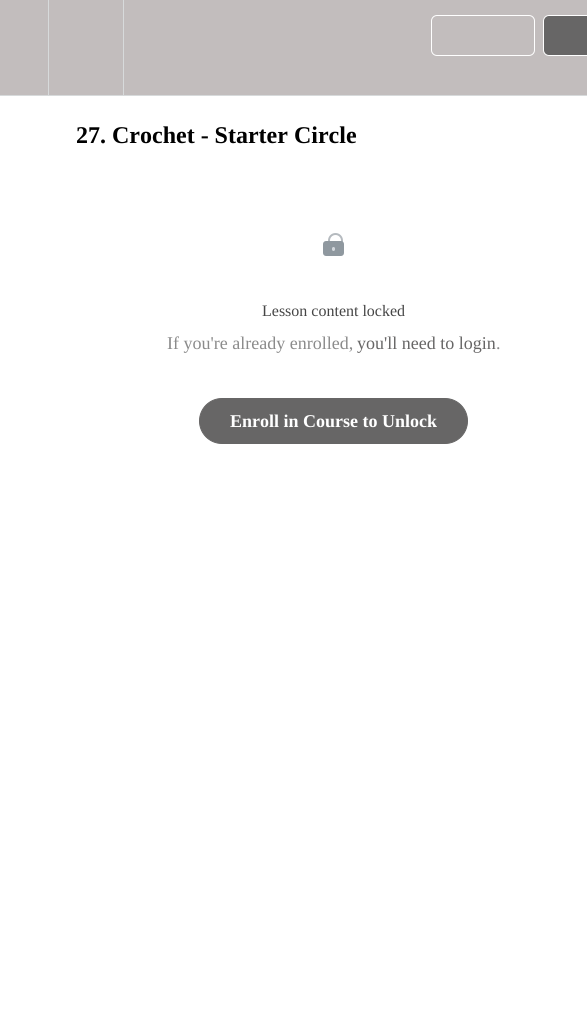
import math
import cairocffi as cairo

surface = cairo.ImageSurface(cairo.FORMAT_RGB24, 587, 1027)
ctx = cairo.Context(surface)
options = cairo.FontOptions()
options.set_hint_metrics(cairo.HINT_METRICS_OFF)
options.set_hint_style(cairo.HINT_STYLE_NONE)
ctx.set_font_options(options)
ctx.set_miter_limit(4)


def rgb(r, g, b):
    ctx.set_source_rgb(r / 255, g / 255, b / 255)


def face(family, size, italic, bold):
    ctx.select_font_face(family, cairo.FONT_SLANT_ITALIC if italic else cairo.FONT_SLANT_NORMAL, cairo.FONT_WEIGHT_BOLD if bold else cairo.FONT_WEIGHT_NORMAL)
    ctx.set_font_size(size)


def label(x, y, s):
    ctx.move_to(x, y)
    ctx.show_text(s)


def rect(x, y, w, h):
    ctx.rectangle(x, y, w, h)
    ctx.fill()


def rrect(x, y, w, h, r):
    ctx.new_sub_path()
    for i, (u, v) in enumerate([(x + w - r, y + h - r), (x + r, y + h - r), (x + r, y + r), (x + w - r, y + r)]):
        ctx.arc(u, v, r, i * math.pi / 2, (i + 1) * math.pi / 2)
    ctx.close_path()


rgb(255, 255, 255)
ctx.paint()
rgb(194, 189, 189)
rect(0, 0, 587, 95)
rgb(215, 218, 219)
rect(0, 95, 587, 1)
rect(123, 0, 1, 95)
rect(48, 0, 1, 95)
rrect(431.5, 15.5, 103, 40, 5.5)
rgb(255, 255, 255)
ctx.set_line_width(1)
ctx.stroke()
rgb(103, 102, 102)
rrect(543.5, 15.5, 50, 40, 5.5)
ctx.fill_preserve()
rgb(255, 255, 255)
ctx.stroke()
face('Liberation Serif', 24, 0, 1)
rgb(0, 0, 0)
label(76, 143, '27. Crochet - Starter Circle')
rrect(329, 234, 13, 20, 6.5)
rgb(181, 186, 191)
ctx.set_line_width(2)
ctx.stroke()
rgb(143, 152, 159)
rrect(323, 241, 21, 15, 3)
ctx.fill()
rgb(211, 215, 220)
rrect(332, 247, 3, 4, 1.5)
ctx.fill()
face('Liberation Serif', 16, 0, 0)
rgb(69, 69, 69)
label(262, 316, 'Lesson content locked')
face('Liberation Serif', 18, 0, 0)
rgb(139, 139, 139)
label(167, 349, 'If you\'re already enrolled,')
rgb(103, 102, 102)
label(357, 349, 'you\'ll need to login')
rgb(139, 139, 139)
label(496, 349, '.')
rgb(103, 102, 102)
rrect(199.5, 398.5, 268, 45, 22.5)
ctx.fill_preserve()
ctx.set_line_width(1)
ctx.stroke()
face('Liberation Serif', 18, 0, 1)
rgb(255, 255, 255)
label(230, 427, 'Enroll in Course to Unlock')
surface.write_to_png('render.png')
